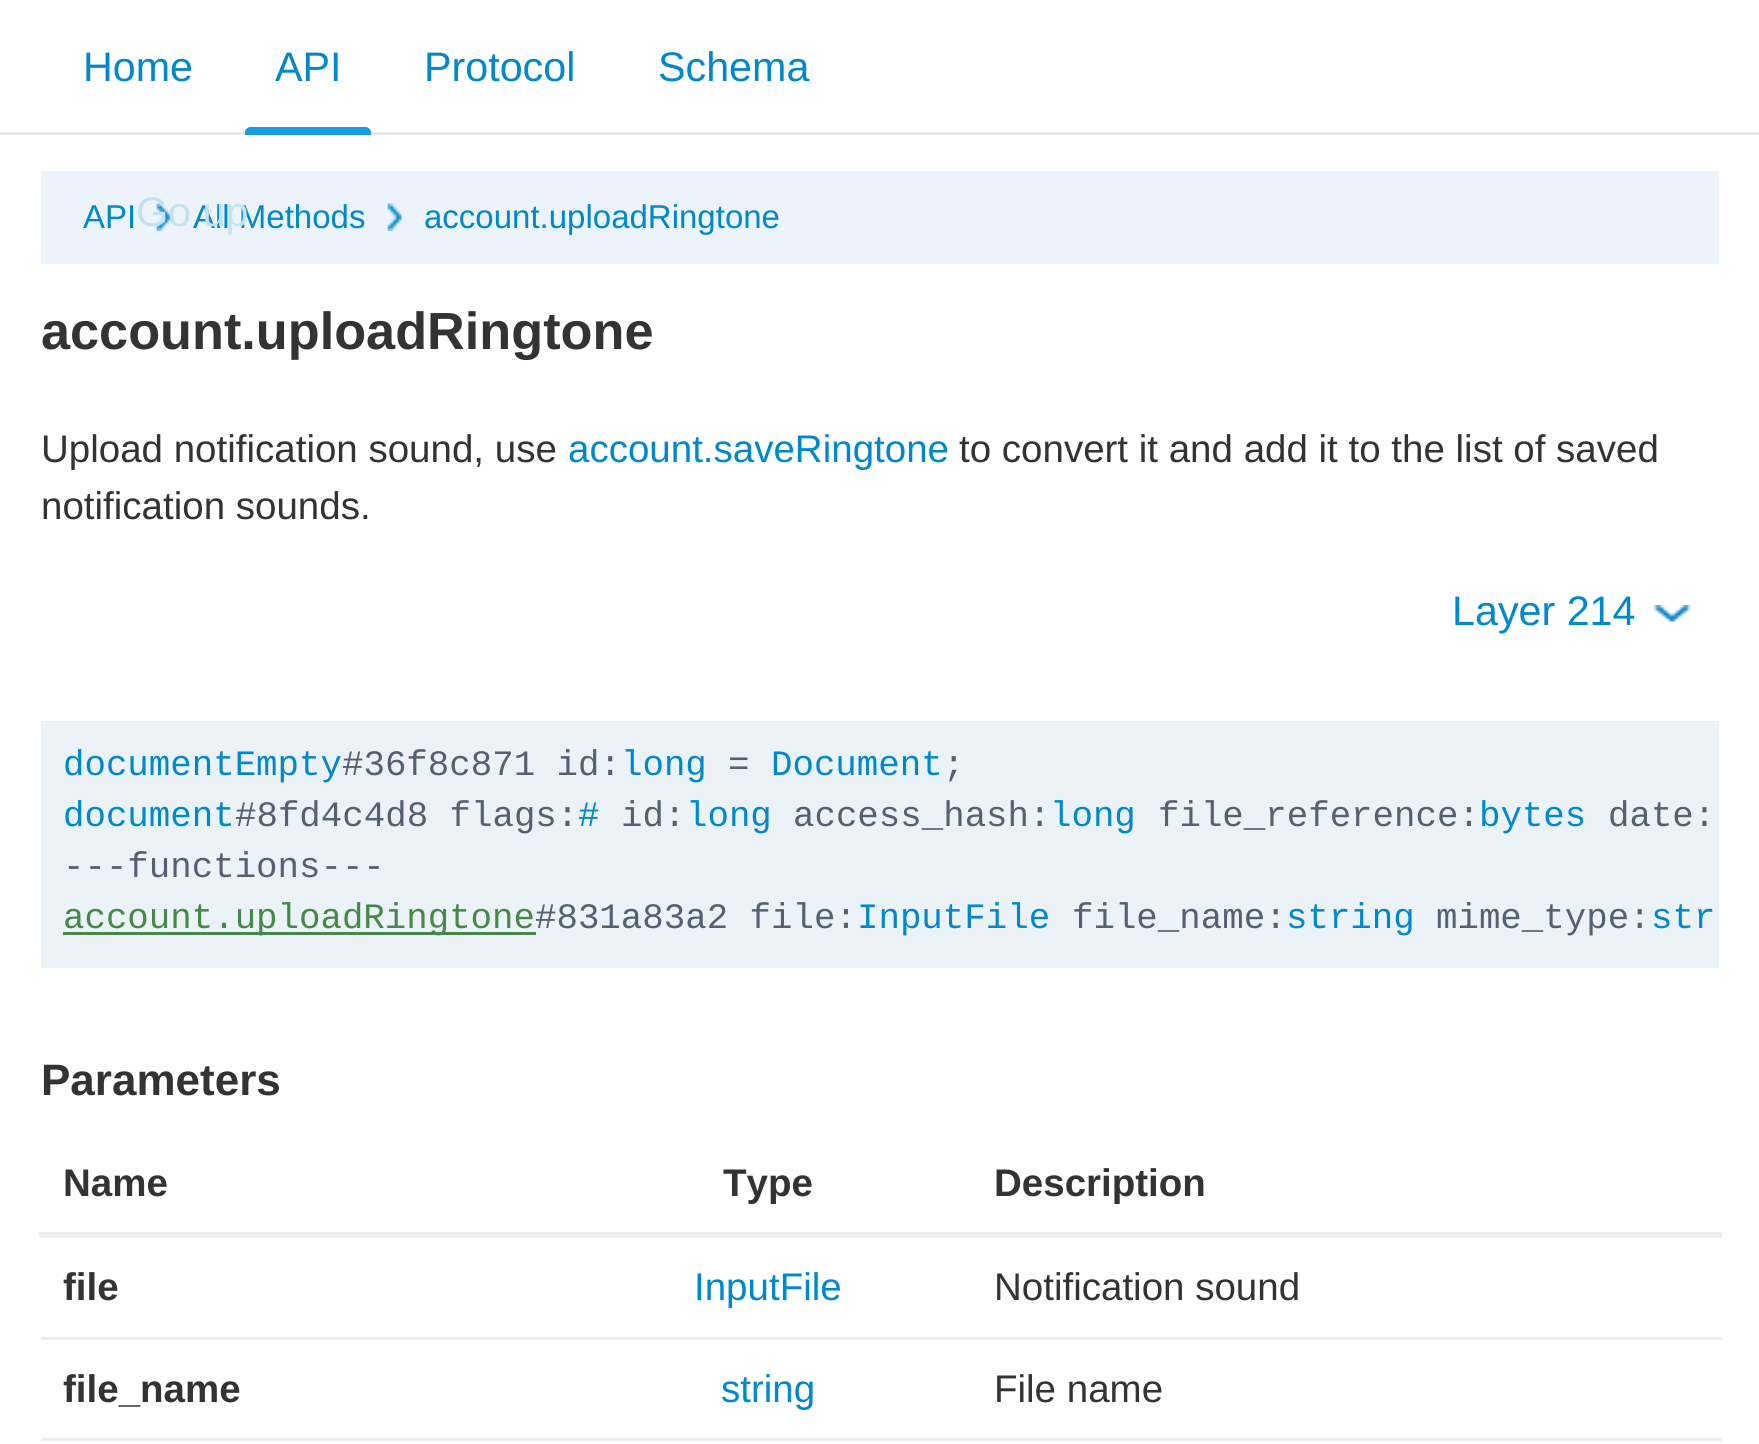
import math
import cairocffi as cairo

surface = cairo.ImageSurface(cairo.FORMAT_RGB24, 1759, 1444)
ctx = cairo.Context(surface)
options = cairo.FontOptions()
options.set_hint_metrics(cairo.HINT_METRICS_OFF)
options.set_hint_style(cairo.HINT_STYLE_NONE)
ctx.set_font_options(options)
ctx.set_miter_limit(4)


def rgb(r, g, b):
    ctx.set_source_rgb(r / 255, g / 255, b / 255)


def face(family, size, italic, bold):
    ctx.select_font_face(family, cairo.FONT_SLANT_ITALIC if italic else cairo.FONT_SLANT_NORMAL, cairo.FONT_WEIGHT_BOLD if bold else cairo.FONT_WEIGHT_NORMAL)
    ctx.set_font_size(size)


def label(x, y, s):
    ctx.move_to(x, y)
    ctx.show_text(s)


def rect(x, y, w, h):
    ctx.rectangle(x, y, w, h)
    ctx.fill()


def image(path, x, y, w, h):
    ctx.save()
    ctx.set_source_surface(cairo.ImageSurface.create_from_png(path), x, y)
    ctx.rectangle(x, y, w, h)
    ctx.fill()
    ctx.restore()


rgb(255, 255, 255)
ctx.paint()
rgb(232, 232, 232)
rect(0, 132, 1759, 3)
face('Liberation Sans', 41.25, 0, 0)
rgb(0, 136, 204)
label(83, 81, 'Home')
label(275, 81, 'API')
rgb(23, 156, 222)
ctx.new_path()
ctx.move_to(251, 127)
ctx.line_to(365, 127)
ctx.curve_to(368.5, 127, 371, 129.5, 371, 133)
ctx.line_to(371, 135)
ctx.line_to(245, 135)
ctx.line_to(245, 133)
ctx.curve_to(245, 129.5, 247.5, 127, 251, 127)
ctx.close_path()
ctx.fill()
rgb(0, 136, 204)
label(424, 81, 'Protocol')
label(658, 81, 'Schema')
rgb(236, 243, 250)
rect(41, 171, 1678, 93)
face('Liberation Sans', 33, 0, 0)
rgb(0, 136, 204)
label(83, 228, 'API')
image('image0.png', 156, 203, 15, 28)
label(193, 228, 'All Methods')
image('image0.png', 387, 203, 15, 28)
label(424, 228, 'account.uploadRingtone')
face('Liberation Sans', 52.25, 0, 1)
rgb(51, 51, 51)
label(41, 349, 'account.uploadRingtone')
face('Liberation Sans', 38.5, 0, 0)
label(41, 462, 'Upload notification sound, use')
rgb(0, 136, 204)
label(568, 462, 'account.saveRingtone')
rgb(51, 51, 51)
label(959, 462, 'to convert it and add it to the list of saved')
label(41, 519, 'notification sounds.')
face('Liberation Sans', 41.25, 0, 0)
rgb(0, 136, 204)
label(1452, 625, 'Layer 214')
image('image1.png', 1652, 605, 40, 17)
rgb(236, 243, 248)
rect(41, 721, 1678, 247)
face('Liberation Mono', 35.75, 0, 0)
rgb(0, 136, 204)
label(63, 775, 'documentEmpty')
rgb(84, 97, 114)
label(342, 775, '#36f8c871 id:')
rgb(0, 136, 204)
label(621, 775, 'long')
rgb(84, 97, 114)
label(728, 775, '=')
rgb(0, 136, 204)
label(771, 775, 'Document')
rgb(84, 97, 114)
label(943, 775, ';')
rgb(0, 136, 204)
label(63, 826, 'document')
rgb(84, 97, 114)
label(235, 826, '#8fd4c4d8 flags:')
rgb(0, 136, 204)
label(578, 826, '#')
rgb(84, 97, 114)
label(621, 826, 'id:')
rgb(0, 136, 204)
label(686, 826, 'long')
rgb(84, 97, 114)
label(793, 826, 'access_hash:')
rgb(0, 136, 204)
label(1050, 826, 'long')
rgb(84, 97, 114)
label(1158, 826, 'file_reference:')
rgb(0, 136, 204)
label(1479, 826, 'bytes')
rgb(84, 97, 114)
label(1608, 826, 'date:')
label(63, 877, '---functions---')
rgb(70, 136, 71)
rect(63, 932, 473, 3)
label(63, 928, 'account.uploadRingtone')
rgb(84, 97, 114)
label(535, 928, '#831a83a2 file:')
rgb(0, 136, 204)
label(857, 928, 'InputFile')
rgb(84, 97, 114)
label(1072, 928, 'file_name:')
rgb(0, 136, 204)
label(1286, 928, 'string')
rgb(84, 97, 114)
label(1436, 928, 'mime_type:')
rgb(0, 136, 204)
label(1651, 928, 'str')
face('Liberation Sans', 44, 0, 1)
rgb(51, 51, 51)
label(41, 1095, 'Parameters')
face('Liberation Sans', 38.5, 0, 1)
label(63, 1196, 'Name')
label(723, 1196, 'Type')
rgb(238, 238, 238)
rect(39, 1232, 1683, 6)
rgb(51, 51, 51)
label(994, 1196, 'Description')
label(63, 1300, 'file')
face('Liberation Sans', 38.5, 0, 0)
rgb(0, 136, 204)
label(694, 1300, 'InputFile')
rgb(51, 51, 51)
label(994, 1300, 'Notification sound')
face('Liberation Sans', 38.5, 0, 1)
label(63, 1402, 'file_name')
face('Liberation Sans', 38.5, 0, 0)
rgb(0, 136, 204)
label(721, 1402, 'string')
rgb(238, 238, 238)
rect(41, 1337, 1681, 3)
rgb(51, 51, 51)
label(994, 1402, 'File name')
rgb(238, 238, 238)
rect(41, 1438, 1681, 3)
face('Liberation Sans', 41.25, 0, 0)
rgb(196, 225, 242)
label(136, 226, 'Go up')
surface.write_to_png('render.png')
